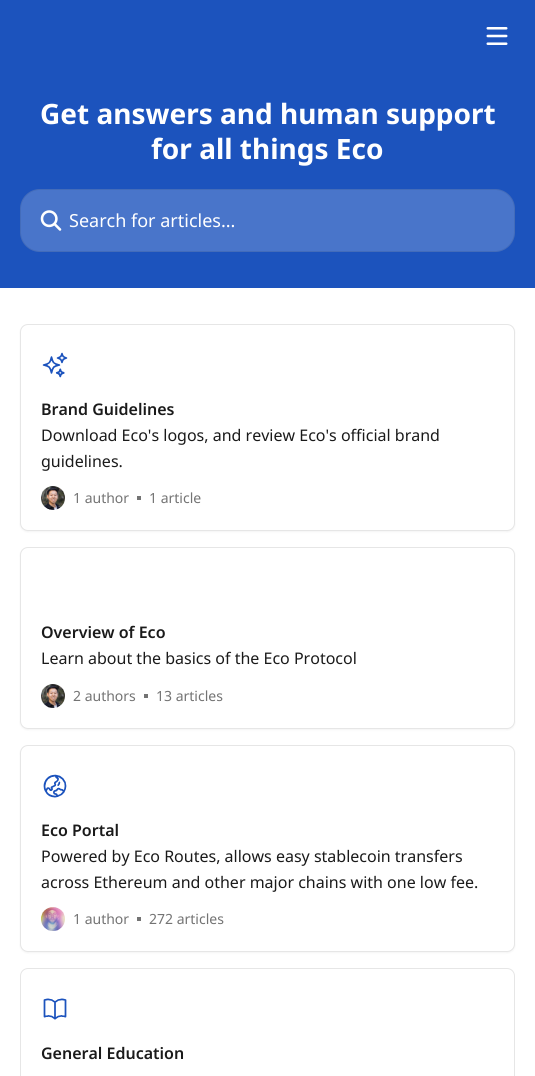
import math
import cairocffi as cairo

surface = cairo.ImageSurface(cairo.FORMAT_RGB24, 535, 1076)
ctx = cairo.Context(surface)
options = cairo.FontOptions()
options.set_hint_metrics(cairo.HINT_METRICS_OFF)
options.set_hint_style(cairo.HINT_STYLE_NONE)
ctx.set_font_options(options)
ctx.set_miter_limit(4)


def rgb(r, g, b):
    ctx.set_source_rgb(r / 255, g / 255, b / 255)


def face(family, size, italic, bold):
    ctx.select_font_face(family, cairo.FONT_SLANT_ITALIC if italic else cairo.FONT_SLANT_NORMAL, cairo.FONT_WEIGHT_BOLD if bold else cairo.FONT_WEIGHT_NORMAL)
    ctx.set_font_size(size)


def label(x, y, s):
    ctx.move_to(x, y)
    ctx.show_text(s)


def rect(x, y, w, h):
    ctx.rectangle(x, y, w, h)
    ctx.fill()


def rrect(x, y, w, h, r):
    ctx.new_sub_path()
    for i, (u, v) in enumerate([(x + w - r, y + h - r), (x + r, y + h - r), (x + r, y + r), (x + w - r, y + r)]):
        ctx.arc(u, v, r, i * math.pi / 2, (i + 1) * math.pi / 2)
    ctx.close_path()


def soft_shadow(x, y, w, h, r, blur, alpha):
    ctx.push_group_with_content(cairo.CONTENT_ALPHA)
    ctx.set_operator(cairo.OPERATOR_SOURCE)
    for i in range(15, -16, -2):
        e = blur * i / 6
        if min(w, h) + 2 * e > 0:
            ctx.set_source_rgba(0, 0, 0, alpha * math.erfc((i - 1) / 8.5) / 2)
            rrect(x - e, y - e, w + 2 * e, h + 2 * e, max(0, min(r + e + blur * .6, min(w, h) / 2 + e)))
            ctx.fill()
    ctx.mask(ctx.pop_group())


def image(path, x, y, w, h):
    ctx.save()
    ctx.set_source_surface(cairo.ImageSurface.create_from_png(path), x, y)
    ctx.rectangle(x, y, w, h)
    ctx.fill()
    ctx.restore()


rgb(255, 255, 255)
ctx.paint()
rgb(28, 83, 189)
rect(0, 0, 535, 288)
image('image0.png', 486, 27, 22, 18)
face('Noto Sans', 28, 0, 1)
rgb(255, 255, 255)
label(40, 124, 'Get answers and human support')
label(151, 159, 'for all things Eco')
ctx.set_source_rgba(1, 1, 1, 0.2)
rrect(20, 189, 495, 63, 20)
ctx.fill()
rrect(20.5, 189.5, 494, 62, 19.5)
ctx.set_source_rgba(0, 0, 0, 0.08)
ctx.set_line_width(1)
ctx.stroke()
image('image1.png', 40, 210, 22, 21)
face('Noto Sans', 18, 0, 0)
rgb(255, 255, 255)
label(69, 227, 'Search for articles...')
rgb(0, 0, 0)
soft_shadow(20, 325, 495, 207, 8, 1, 0.05)
rgb(255, 255, 255)
rrect(20.5, 324.5, 494, 206, 7.5)
ctx.fill_preserve()
rgb(230, 230, 230)
ctx.stroke()
image('image2.png', 42, 352, 26, 26)
face('Noto Sans SemiBold', 16, 0, 0)
rgb(26, 26, 26)
label(41, 415, 'Brand Guidelines')
face('Noto Sans', 16, 0, 0)
label(41, 441, 'Download Eco\'s logos, and review Eco\'s official brand')
label(41, 467, 'guidelines.')
image('image3.png', 41, 486, 24, 24)
face('Noto Sans', 14, 0, 0)
rgb(115, 115, 115)
label(73, 503, '1 author')
rect(137, 496, 4, 4)
label(149, 503, '1 article')
rgb(0, 0, 0)
soft_shadow(20, 548, 495, 182, 8, 1, 0.05)
rgb(255, 255, 255)
rrect(20.5, 547.5, 494, 181, 7.5)
ctx.fill_preserve()
rgb(230, 230, 230)
ctx.stroke()
face('Noto Sans SemiBold', 16, 0, 0)
rgb(26, 26, 26)
label(41, 638, 'Overview of Eco')
face('Noto Sans', 16, 0, 0)
label(41, 664, 'Learn about the basics of the Eco Protocol')
image('image4.png', 41, 684, 24, 24)
face('Noto Sans', 14, 0, 0)
rgb(115, 115, 115)
label(73, 701, '2 authors')
rect(144, 694, 4, 4)
label(156, 701, '13 articles')
rgb(0, 0, 0)
soft_shadow(20, 746, 495, 207, 8, 1, 0.05)
rgb(255, 255, 255)
rrect(20.5, 745.5, 494, 206, 7.5)
ctx.fill_preserve()
rgb(230, 230, 230)
ctx.stroke()
image('image5.png', 43, 774, 24, 24)
face('Noto Sans SemiBold', 16, 0, 0)
rgb(26, 26, 26)
label(41, 836, 'Eco Portal')
face('Noto Sans', 16, 0, 0)
label(41, 862, 'Powered by Eco Routes, allows easy stablecoin transfers')
label(41, 888, 'across Ethereum and other major chains with one low fee.')
image('image6.png', 41, 907, 24, 24)
face('Noto Sans', 14, 0, 0)
rgb(115, 115, 115)
label(73, 924, '1 author')
rect(137, 917, 4, 4)
label(149, 924, '272 articles')
rrect(20.5, 968.5, 494, 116, 7.5)
rgb(230, 230, 230)
ctx.stroke()
image('image7.png', 43, 998, 24, 22)
face('Noto Sans SemiBold', 16, 0, 0)
rgb(26, 26, 26)
label(41, 1059, 'General Education')
surface.write_to_png('render.png')
